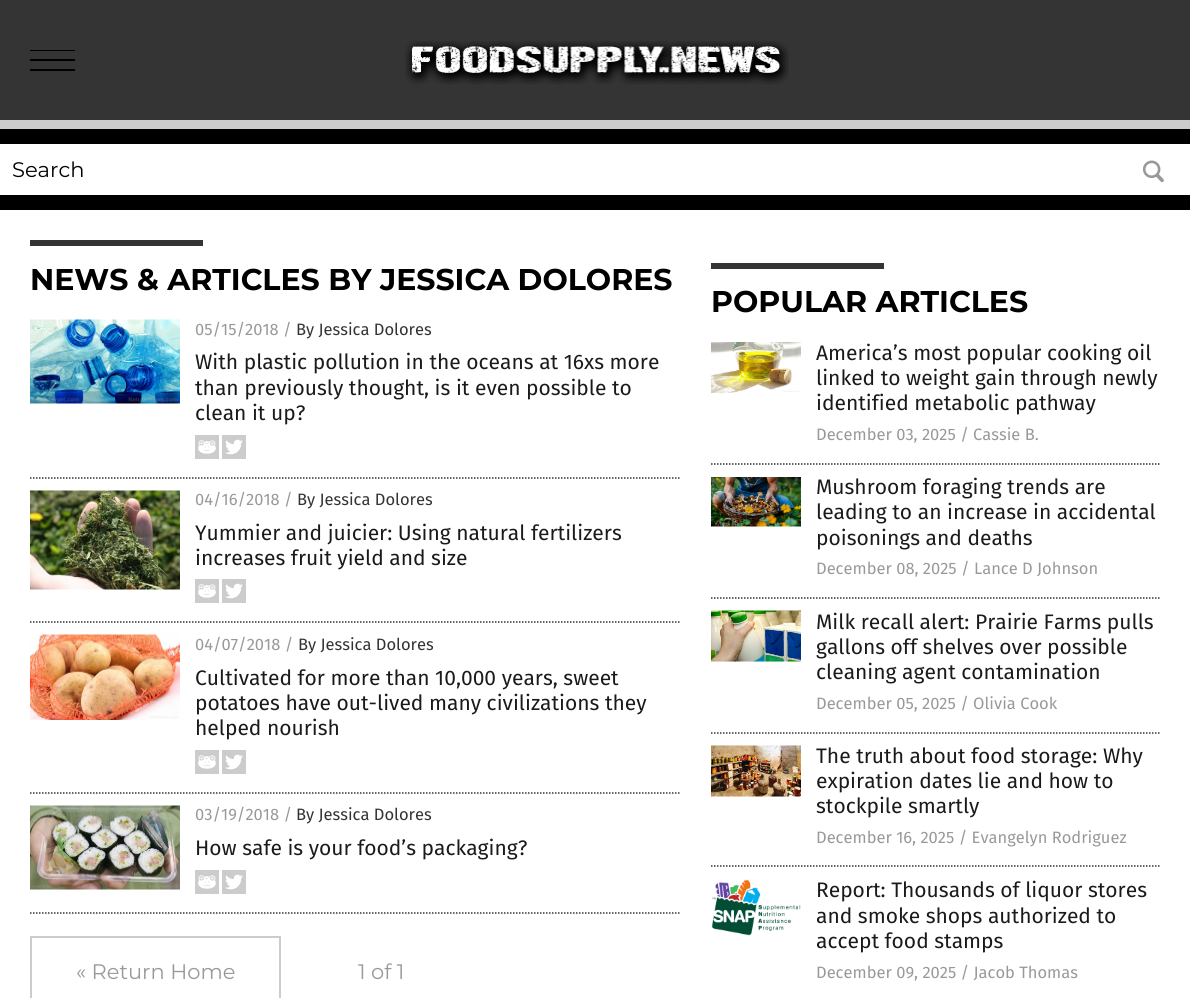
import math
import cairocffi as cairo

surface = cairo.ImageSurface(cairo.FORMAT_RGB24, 1190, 998)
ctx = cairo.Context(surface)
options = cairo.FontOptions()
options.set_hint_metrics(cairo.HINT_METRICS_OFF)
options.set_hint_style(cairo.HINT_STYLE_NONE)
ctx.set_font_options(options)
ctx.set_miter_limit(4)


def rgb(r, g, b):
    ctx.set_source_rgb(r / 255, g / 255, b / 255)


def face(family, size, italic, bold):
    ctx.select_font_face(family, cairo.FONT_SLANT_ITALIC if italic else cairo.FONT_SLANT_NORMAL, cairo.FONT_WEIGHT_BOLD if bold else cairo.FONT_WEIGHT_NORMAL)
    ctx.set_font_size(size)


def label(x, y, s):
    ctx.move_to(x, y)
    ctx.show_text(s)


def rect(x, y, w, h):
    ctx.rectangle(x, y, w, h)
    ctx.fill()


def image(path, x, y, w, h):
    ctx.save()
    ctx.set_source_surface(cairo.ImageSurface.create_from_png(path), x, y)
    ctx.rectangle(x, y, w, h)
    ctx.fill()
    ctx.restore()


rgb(0, 0, 0)
ctx.paint()
rgb(52, 52, 52)
rect(0, 0, 1190, 120)
rgb(0, 0, 0)
rect(30, 69, 45, 2)
rect(30, 59, 45, 2)
rect(30, 50, 45, 1)
image('image0.png', 405, 41, 384, 44)
rgb(204, 204, 204)
rect(0, 120, 1190, 9)
rgb(255, 255, 255)
rect(0, 144, 1190, 51)
face('Montserrat', 21, 0, 0)
rgb(0, 0, 0)
label(12, 177, 'Search')
image('image1.png', 1142, 160, 22, 23)
rgb(255, 255, 255)
rect(0, 210, 1190, 788)
rgb(52, 52, 52)
rect(30, 240, 173, 6)
face('Montserrat', 30, 0, 1)
rgb(0, 0, 0)
label(30, 290, 'NEWS & ARTICLES BY JESSICA DOLORES')
ctx.new_path()
ctx.move_to(30, 478)
ctx.line_to(681, 478)
rgb(52, 52, 52)
ctx.set_line_width(1.5)
ctx.set_dash([1.5, 1.5])
ctx.stroke()
image('image2.png', 30, 319, 150, 85)
face('Fira Sans', 16.5, 0, 0)
rgb(153, 153, 153)
label(195, 335, '05/15/2018 /')
rgb(51, 51, 51)
label(296, 335, 'By Jessica Dolores')
face('Fira Sans', 21, 0, 0)
rgb(26, 26, 26)
label(195, 369, 'With plastic pollution in the oceans at 16xs more')
label(195, 395, 'than previously thought, is it even possible to')
label(195, 420, 'clean it up?')
image('image3.png', 195, 435, 24, 24)
image('image4.png', 222, 435, 24, 24)
ctx.new_path()
ctx.move_to(30, 622)
ctx.line_to(681, 622)
rgb(52, 52, 52)
ctx.stroke()
image('image5.png', 30, 490, 150, 100)
face('Fira Sans', 16.5, 0, 0)
rgb(153, 153, 153)
label(195, 505, '04/16/2018 /')
rgb(51, 51, 51)
label(297, 505, 'By Jessica Dolores')
face('Fira Sans', 21, 0, 0)
rgb(26, 26, 26)
label(195, 540, 'Yummier and juicier: Using natural fertilizers')
label(195, 565, 'increases fruit yield and size')
image('image3.png', 195, 579, 24, 24)
image('image4.png', 222, 579, 24, 24)
ctx.new_path()
ctx.move_to(30, 793)
ctx.line_to(681, 793)
rgb(52, 52, 52)
ctx.stroke()
image('image6.png', 30, 634, 150, 86)
face('Fira Sans', 16.5, 0, 0)
rgb(153, 153, 153)
label(195, 650, '04/07/2018 /')
rgb(51, 51, 51)
label(298, 650, 'By Jessica Dolores')
face('Fira Sans', 21, 0, 0)
rgb(26, 26, 26)
label(195, 685, 'Cultivated for more than 10,000 years, sweet')
label(195, 710, 'potatoes have out-lived many civilizations they')
label(195, 735, 'helped nourish')
image('image3.png', 195, 750, 24, 24)
image('image4.png', 222, 750, 24, 24)
ctx.new_path()
ctx.move_to(30, 913)
ctx.line_to(681, 913)
rgb(52, 52, 52)
ctx.stroke()
image('image7.png', 30, 805, 150, 85)
face('Fira Sans', 16.5, 0, 0)
rgb(153, 153, 153)
label(195, 820, '03/19/2018 /')
rgb(51, 51, 51)
label(296, 820, 'By Jessica Dolores')
face('Fira Sans', 21, 0, 0)
rgb(26, 26, 26)
label(195, 855, 'How safe is your food’s packaging?')
image('image3.png', 195, 870, 24, 24)
image('image4.png', 222, 870, 24, 24)
ctx.rectangle(31, 937, 249, 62)
rgb(204, 204, 204)
ctx.set_line_width(2)
ctx.set_dash([])
ctx.stroke()
face('Montserrat', 21, 0, 0)
rgb(153, 153, 153)
label(76, 979, '« Return Home')
label(358, 979, '1 of 1')
rgb(52, 52, 52)
rect(711, 263, 173, 6)
face('Montserrat', 30, 0, 1)
rgb(0, 0, 0)
label(711, 312, 'POPULAR ARTICLES')
ctx.new_path()
ctx.move_to(711, 464)
ctx.line_to(1161, 464)
rgb(52, 52, 52)
ctx.set_line_width(1.5)
ctx.set_dash([1.5, 1.5])
ctx.stroke()
image('image8.png', 711, 342, 90, 51)
face('Fira Sans', 21, 0, 0)
rgb(26, 26, 26)
label(816, 360, 'America’s most popular cooking oil')
label(816, 385, 'linked to weight gain through newly')
label(816, 410, 'identified metabolic pathway')
face('Fira Sans', 16.5, 0, 0)
rgb(153, 153, 153)
label(816, 440, 'December 03, 2025 / Cassie B.')
ctx.new_path()
ctx.move_to(711, 598)
ctx.line_to(1161, 598)
rgb(52, 52, 52)
ctx.stroke()
image('image9.png', 711, 477, 90, 50)
face('Fira Sans', 21, 0, 0)
rgb(26, 26, 26)
label(816, 494, 'Mushroom foraging trends are')
label(816, 519, 'leading to an increase in accidental')
label(816, 545, 'poisonings and deaths')
face('Fira Sans', 16.5, 0, 0)
rgb(153, 153, 153)
label(816, 574, 'December 08, 2025 / Lance D Johnson')
ctx.new_path()
ctx.move_to(711, 733)
ctx.line_to(1161, 733)
rgb(52, 52, 52)
ctx.stroke()
image('image10.png', 711, 610, 90, 52)
face('Fira Sans', 21, 0, 0)
rgb(26, 26, 26)
label(816, 629, 'Milk recall alert: Prairie Farms pulls')
label(816, 654, 'gallons off shelves over possible')
label(816, 679, 'cleaning agent contamination')
face('Fira Sans', 16.5, 0, 0)
rgb(153, 153, 153)
label(816, 709, 'December 05, 2025 / Olivia Cook')
ctx.new_path()
ctx.move_to(711, 866)
ctx.line_to(1161, 866)
rgb(52, 52, 52)
ctx.stroke()
image('image11.png', 711, 745, 90, 52)
face('Fira Sans', 21, 0, 0)
rgb(26, 26, 26)
label(816, 763, 'The truth about food storage: Why')
label(816, 788, 'expiration dates lie and how to')
label(816, 813, 'stockpile smartly')
face('Fira Sans', 16.5, 0, 0)
rgb(153, 153, 153)
label(816, 843, 'December 16, 2025 / Evangelyn Rodriguez')
image('image12.png', 711, 879, 90, 57)
face('Fira Sans', 21, 0, 0)
rgb(26, 26, 26)
label(816, 897, 'Report: Thousands of liquor stores')
label(816, 923, 'and smoke shops authorized to')
label(816, 948, 'accept food stamps')
face('Fira Sans', 16.5, 0, 0)
rgb(153, 153, 153)
label(816, 978, 'December 09, 2025 / Jacob Thomas')
surface.write_to_png('render.png')
